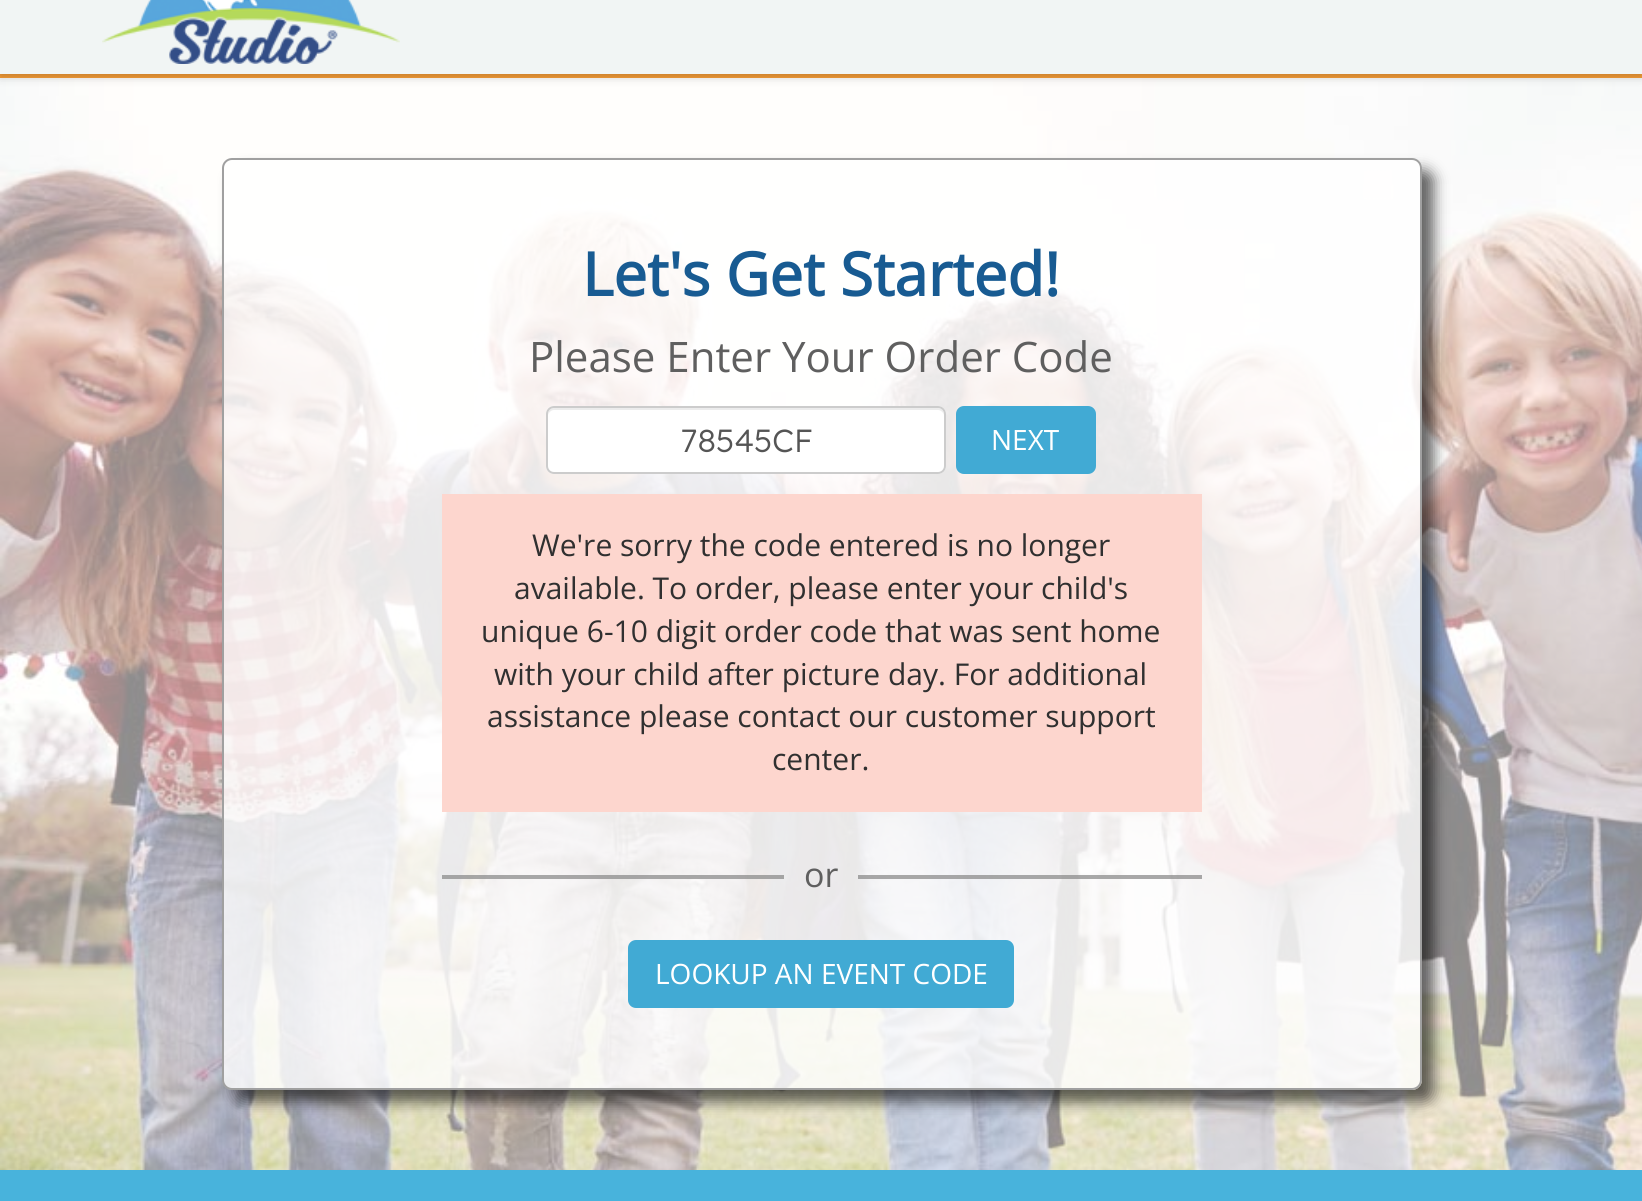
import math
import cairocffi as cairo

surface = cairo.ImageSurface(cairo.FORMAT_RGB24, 1642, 1201)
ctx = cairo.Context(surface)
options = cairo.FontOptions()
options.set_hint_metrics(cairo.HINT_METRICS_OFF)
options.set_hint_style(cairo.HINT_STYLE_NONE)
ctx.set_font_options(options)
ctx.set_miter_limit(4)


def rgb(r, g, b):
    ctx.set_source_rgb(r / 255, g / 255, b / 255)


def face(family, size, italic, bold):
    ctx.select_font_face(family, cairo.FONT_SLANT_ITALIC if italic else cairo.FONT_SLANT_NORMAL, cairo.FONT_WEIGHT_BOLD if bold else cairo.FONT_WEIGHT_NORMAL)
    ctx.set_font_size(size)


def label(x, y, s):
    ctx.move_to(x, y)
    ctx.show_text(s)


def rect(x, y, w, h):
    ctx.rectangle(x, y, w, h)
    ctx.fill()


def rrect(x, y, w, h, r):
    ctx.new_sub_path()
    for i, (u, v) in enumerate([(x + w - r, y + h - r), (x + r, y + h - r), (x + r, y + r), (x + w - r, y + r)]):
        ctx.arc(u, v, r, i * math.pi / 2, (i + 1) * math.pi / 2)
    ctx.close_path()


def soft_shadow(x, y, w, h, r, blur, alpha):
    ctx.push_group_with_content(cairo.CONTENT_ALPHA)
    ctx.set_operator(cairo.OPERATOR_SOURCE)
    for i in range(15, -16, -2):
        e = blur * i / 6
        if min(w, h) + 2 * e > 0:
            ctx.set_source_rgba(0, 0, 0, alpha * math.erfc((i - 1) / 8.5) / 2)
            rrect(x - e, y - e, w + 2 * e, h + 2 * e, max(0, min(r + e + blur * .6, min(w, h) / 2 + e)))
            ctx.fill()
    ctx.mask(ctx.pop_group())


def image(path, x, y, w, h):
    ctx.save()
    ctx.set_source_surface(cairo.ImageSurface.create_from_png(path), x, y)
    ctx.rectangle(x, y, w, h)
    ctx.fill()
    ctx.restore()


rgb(255, 255, 255)
ctx.paint()
image('image0.png', 0, 78, 1642, 1092)
rgb(249, 159, 56)
rect(0, 74, 1642, 4)
rgb(0, 0, 0)
soft_shadow(0, -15, 1642, 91, 0, 5, 0.25)
rgb(241, 245, 244)
rect(0, 0, 1642, 74)
image('image1.png', 102, 0, 298, 64)
ctx.save()
ctx.set_fill_rule(cairo.FILL_RULE_EVEN_ODD)
ctx.new_path()
ctx.move_to(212, 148)
ctx.line_to(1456, 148)
ctx.line_to(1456, 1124)
ctx.line_to(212, 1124)
ctx.close_path()
ctx.move_to(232, 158)
ctx.line_to(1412, 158)
ctx.curve_to(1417.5, 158, 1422, 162.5, 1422, 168)
ctx.line_to(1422, 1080)
ctx.curve_to(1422, 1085.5, 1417.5, 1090, 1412, 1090)
ctx.line_to(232, 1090)
ctx.curve_to(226.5, 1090, 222, 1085.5, 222, 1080)
ctx.line_to(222, 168)
ctx.curve_to(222, 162.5, 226.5, 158, 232, 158)
ctx.close_path()
ctx.clip()
rgb(0, 0, 0)
soft_shadow(234, 170, 1200, 932, 10, 7, 0.6)
ctx.restore()
ctx.set_source_rgba(1, 1, 1, 0.8)
rrect(223, 159, 1198, 930, 9)
ctx.fill_preserve()
rgb(160, 160, 160)
ctx.stroke()
face('Open Sans', 60, 0, 1)
rgb(24, 91, 146)
label(582, 296, 'Let\'s Get Started!')
face('Open Sans', 42, 0, 0)
rgb(95, 95, 95)
label(529, 372, 'Please Enter Your Order Code')
rgb(255, 255, 255)
rrect(546, 406, 400, 68, 8)
ctx.fill()
rgb(236, 236, 236)
ctx.new_path()
ctx.move_to(554, 410)
ctx.line_to(938, 410)
ctx.curve_to(941, 410, 944, 413, 944, 416)
ctx.curve_to(944, 412, 943, 408, 938, 408)
ctx.line_to(554, 408)
ctx.curve_to(549, 408, 548, 412, 548, 416)
ctx.curve_to(548, 413, 551, 410, 554, 410)
ctx.close_path()
ctx.fill()
rrect(547, 407, 398, 66, 7)
rgb(204, 204, 204)
ctx.stroke()
face('Lexend Light', 32, 0, 0)
rgb(85, 85, 85)
label(681, 452, '78545CF')
rgb(65, 170, 212)
rrect(957, 407, 138, 66, 7)
ctx.fill_preserve()
ctx.stroke()
face('Open Sans', 28, 0, 0)
rgb(255, 255, 255)
label(991, 450, 'NEXT')
rgb(253, 214, 206)
rect(442, 494, 760, 318)
face('Open Sans', 30, 0, 0)
rgb(48, 48, 48)
label(532, 556, 'We\'re sorry the code entered is no longer')
label(514, 599, 'available. To order, please enter your child\'s')
label(481, 642, 'unique 6-10 digit order code that was sent home')
label(494, 685, 'with your child after picture day. For additional')
label(487, 727, 'assistance please contact our customer support')
label(772, 770, 'center.')
ctx.set_source_rgba(0.549, 0.549, 0.549, 0.75)
rect(442, 875, 342, 4)
face('Open Sans', 34, 0, 0)
rgb(95, 95, 95)
label(804, 887, 'or')
ctx.set_source_rgba(0.549, 0.549, 0.549, 0.75)
rect(858, 875, 344, 4)
rgb(65, 170, 212)
rrect(629, 941, 384, 66, 7)
ctx.fill_preserve()
ctx.stroke()
face('Open Sans', 28, 0, 0)
rgb(255, 255, 255)
label(655, 984, 'LOOKUP AN EVENT CODE')
rgb(72, 179, 220)
rect(0, 1170, 1642, 31)
surface.write_to_png('render.png')
